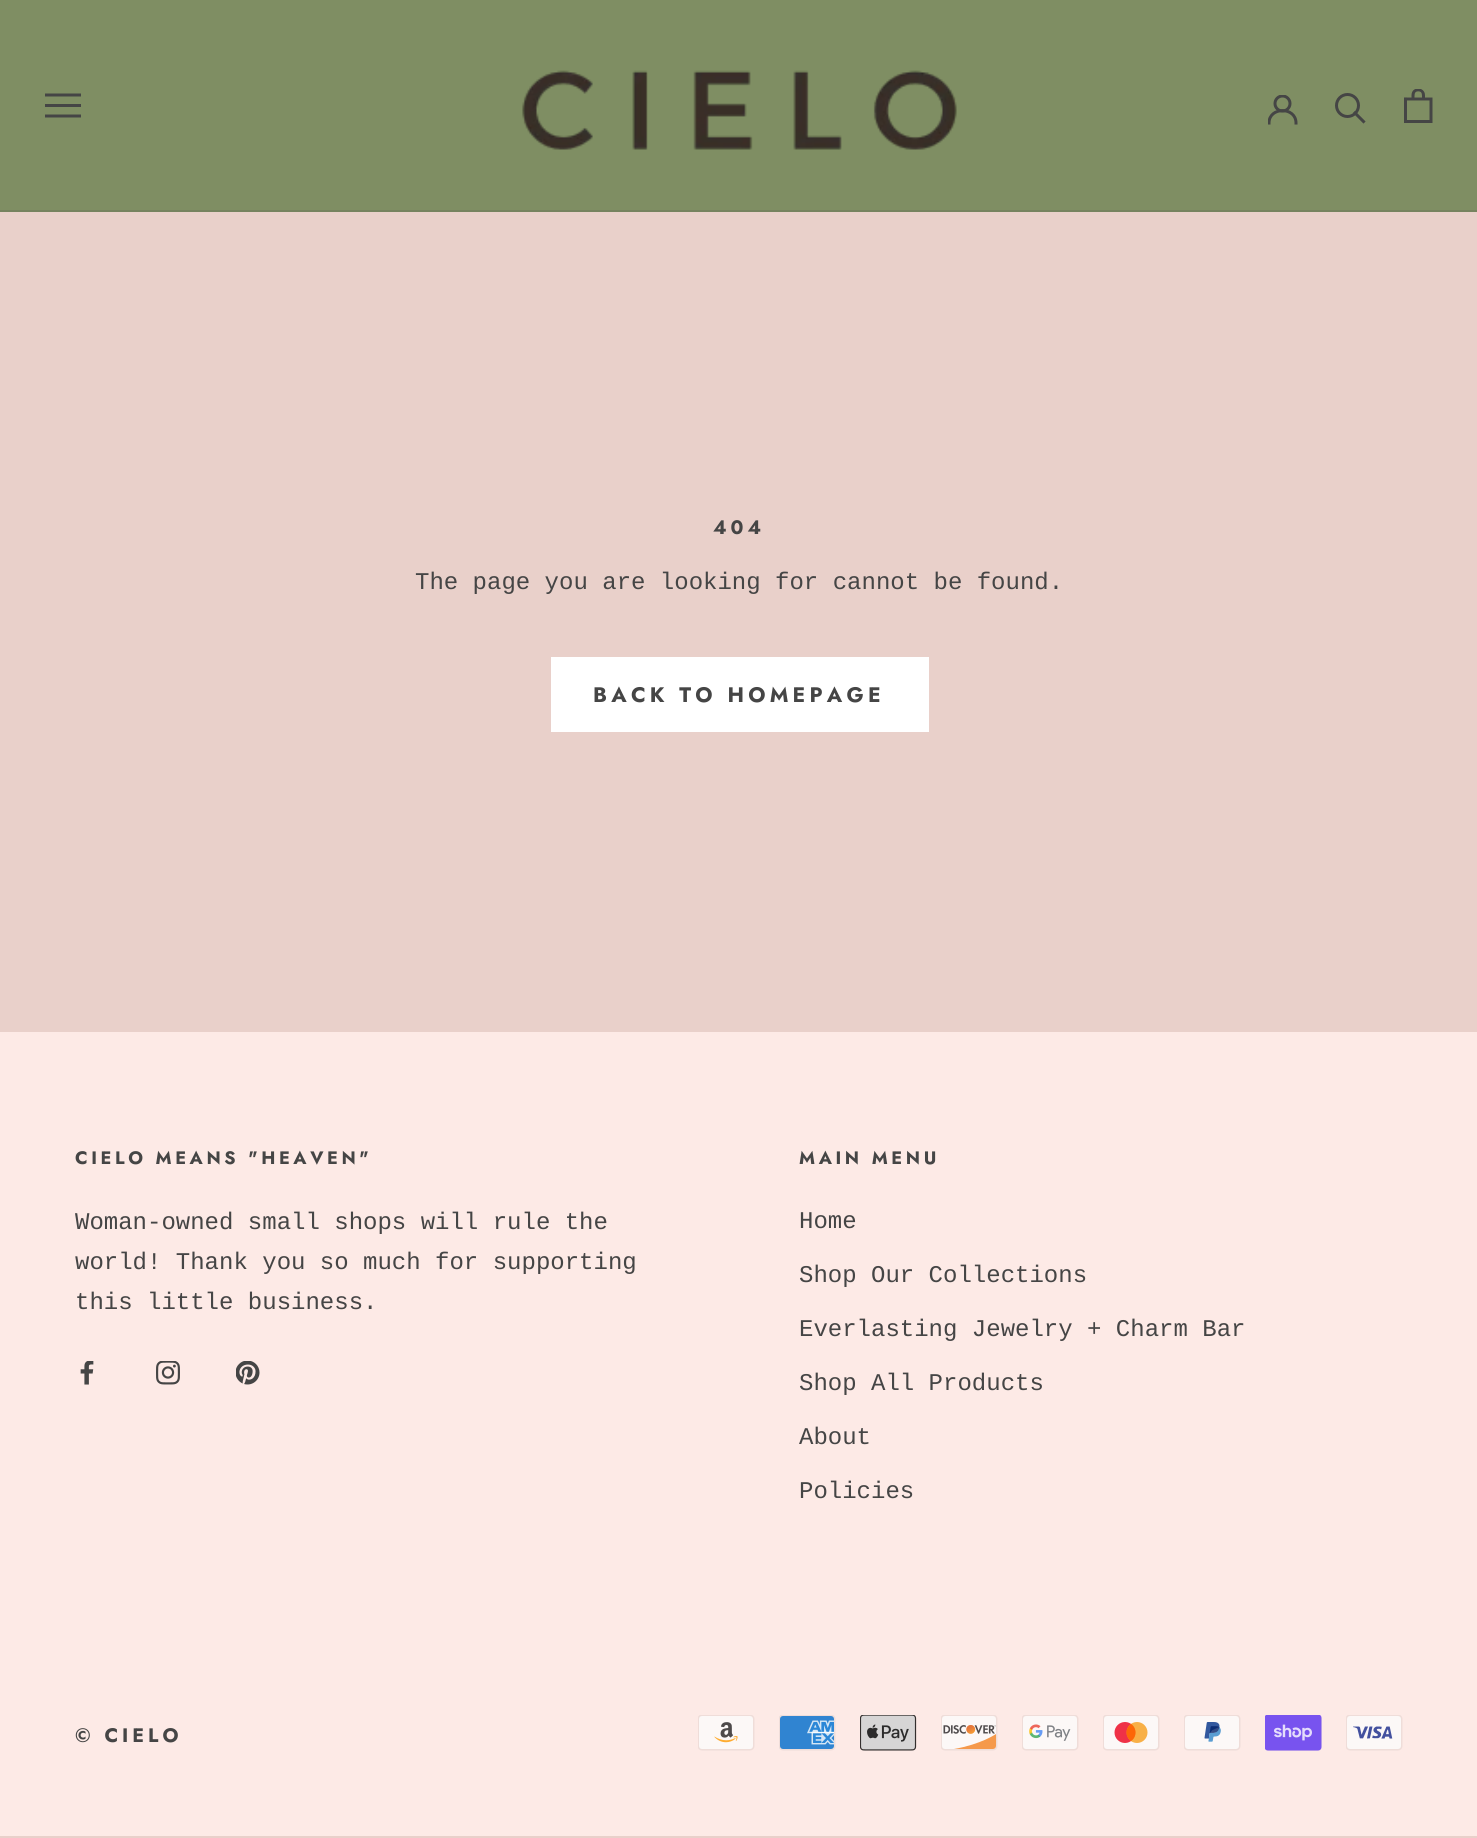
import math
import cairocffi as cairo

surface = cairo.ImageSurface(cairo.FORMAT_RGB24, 1477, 1838)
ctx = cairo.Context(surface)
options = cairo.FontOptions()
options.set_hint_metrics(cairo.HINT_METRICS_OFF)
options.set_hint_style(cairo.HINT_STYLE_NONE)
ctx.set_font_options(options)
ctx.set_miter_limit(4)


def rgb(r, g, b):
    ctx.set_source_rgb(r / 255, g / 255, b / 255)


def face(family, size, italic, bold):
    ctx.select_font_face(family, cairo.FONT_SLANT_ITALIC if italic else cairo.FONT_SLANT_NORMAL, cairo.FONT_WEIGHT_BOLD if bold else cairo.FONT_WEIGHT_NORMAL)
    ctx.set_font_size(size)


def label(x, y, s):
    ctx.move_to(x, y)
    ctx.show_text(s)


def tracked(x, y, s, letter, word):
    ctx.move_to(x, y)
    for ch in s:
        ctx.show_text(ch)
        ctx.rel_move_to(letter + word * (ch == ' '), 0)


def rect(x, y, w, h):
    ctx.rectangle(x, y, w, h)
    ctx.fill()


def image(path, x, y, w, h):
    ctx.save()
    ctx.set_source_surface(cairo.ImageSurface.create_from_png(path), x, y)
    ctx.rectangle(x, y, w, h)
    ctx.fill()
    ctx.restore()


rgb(233, 208, 202)
ctx.paint()
rgb(127, 142, 99)
rect(0, 0, 1477, 210)
rgb(118, 131, 95)
rect(0, 210, 1477, 2)
rgb(69, 69, 69)
ctx.new_path()
ctx.move_to(45, 117.5)
ctx.line_to(45, 114.5)
ctx.line_to(81, 114.5)
ctx.line_to(81, 117.5)
ctx.close_path()
ctx.move_to(45, 104)
ctx.line_to(81, 104)
ctx.line_to(81, 107)
ctx.line_to(45, 107)
ctx.close_path()
ctx.move_to(45, 93.5)
ctx.line_to(81, 93.5)
ctx.line_to(81, 96.5)
ctx.line_to(45, 96.5)
ctx.close_path()
ctx.fill()
image('image0.png', 522, 70, 435, 80)
ctx.save()
ctx.rectangle(1268, 95, 30, 30)
ctx.clip()
ctx.new_path()
ctx.move_to(1269, 123)
ctx.curve_to(1269, 106.5, 1296, 106.5, 1296, 123)
ctx.set_line_width(3)
ctx.set_line_cap(cairo.LINE_CAP_SQUARE)
ctx.stroke()
ctx.arc(1282.5, 103.5, 7.5, 0, 2 * math.pi)
ctx.set_line_cap(cairo.LINE_CAP_BUTT)
ctx.stroke()
ctx.restore()
ctx.new_path()
ctx.move_to(1363.5, 121.5)
ctx.line_to(1355, 113)
ctx.set_line_width(3)
ctx.set_line_cap(cairo.LINE_CAP_SQUARE)
ctx.stroke()
ctx.arc(1347.5, 105.5, 11, 0, 2 * math.pi)
ctx.set_line_cap(cairo.LINE_CAP_BUTT)
ctx.stroke()
image('image1.png', 1404, 89, 29, 34)
face('Jost', 19.5, 0, 1)
tracked(713, 534, '404', 4, 0)
face('Liberation Mono', 24, 0, 0)
label(415, 589, 'The page you are looking for cannot be found.')
ctx.rectangle(552, 658, 376, 73)
rgb(255, 255, 255)
ctx.set_line_width(2)
ctx.stroke()
rect(553, 659, 374, 71)
face('Jost', 21, 0, 1)
rgb(69, 69, 69)
tracked(593, 702, 'BACK TO HOMEPAGE', 4.25, 0)
rgb(253, 234, 230)
rect(0, 1032, 1477, 804)
face('Jost', 18, 0, 1)
rgb(69, 69, 69)
tracked(75, 1164, 'CIELO MEANS "HEAVEN"', 3.6, 0)
face('Liberation Mono', 24, 0, 0)
label(75, 1229, 'Woman-owned small shops will rule the')
label(75, 1269, 'world! Thank you so much for supporting')
label(75, 1309, 'this little business.')
image('image2.png', 80, 1361, 14, 24)
image('image3.png', 156, 1361, 24, 24)
image('image4.png', 236, 1361, 24, 24)
face('Jost', 18, 0, 1)
tracked(799, 1164, 'MAIN MENU', 3.6, 0)
face('Liberation Mono', 24, 0, 0)
label(799, 1228, 'Home')
label(799, 1282, 'Shop Our Collections')
label(799, 1336, 'Everlasting Jewelry + Charm Bar')
label(799, 1390, 'Shop All Products')
label(799, 1444, 'About')
label(799, 1498, 'Policies')
face('Jost', 19.5, 0, 1)
tracked(75, 1742, '© CIELO', 4, 0)
image('image5.png', 698, 1715, 57, 36)
image('image6.png', 779, 1715, 57, 36)
image('image7.png', 860, 1715, 57, 36)
image('image8.png', 941, 1715, 57, 36)
image('image9.png', 1022, 1715, 57, 36)
image('image10.png', 1103, 1715, 57, 36)
image('image11.png', 1184, 1715, 57, 36)
image('image12.png', 1265, 1715, 57, 36)
image('image13.png', 1346, 1715, 57, 36)
surface.write_to_png('render.png')
